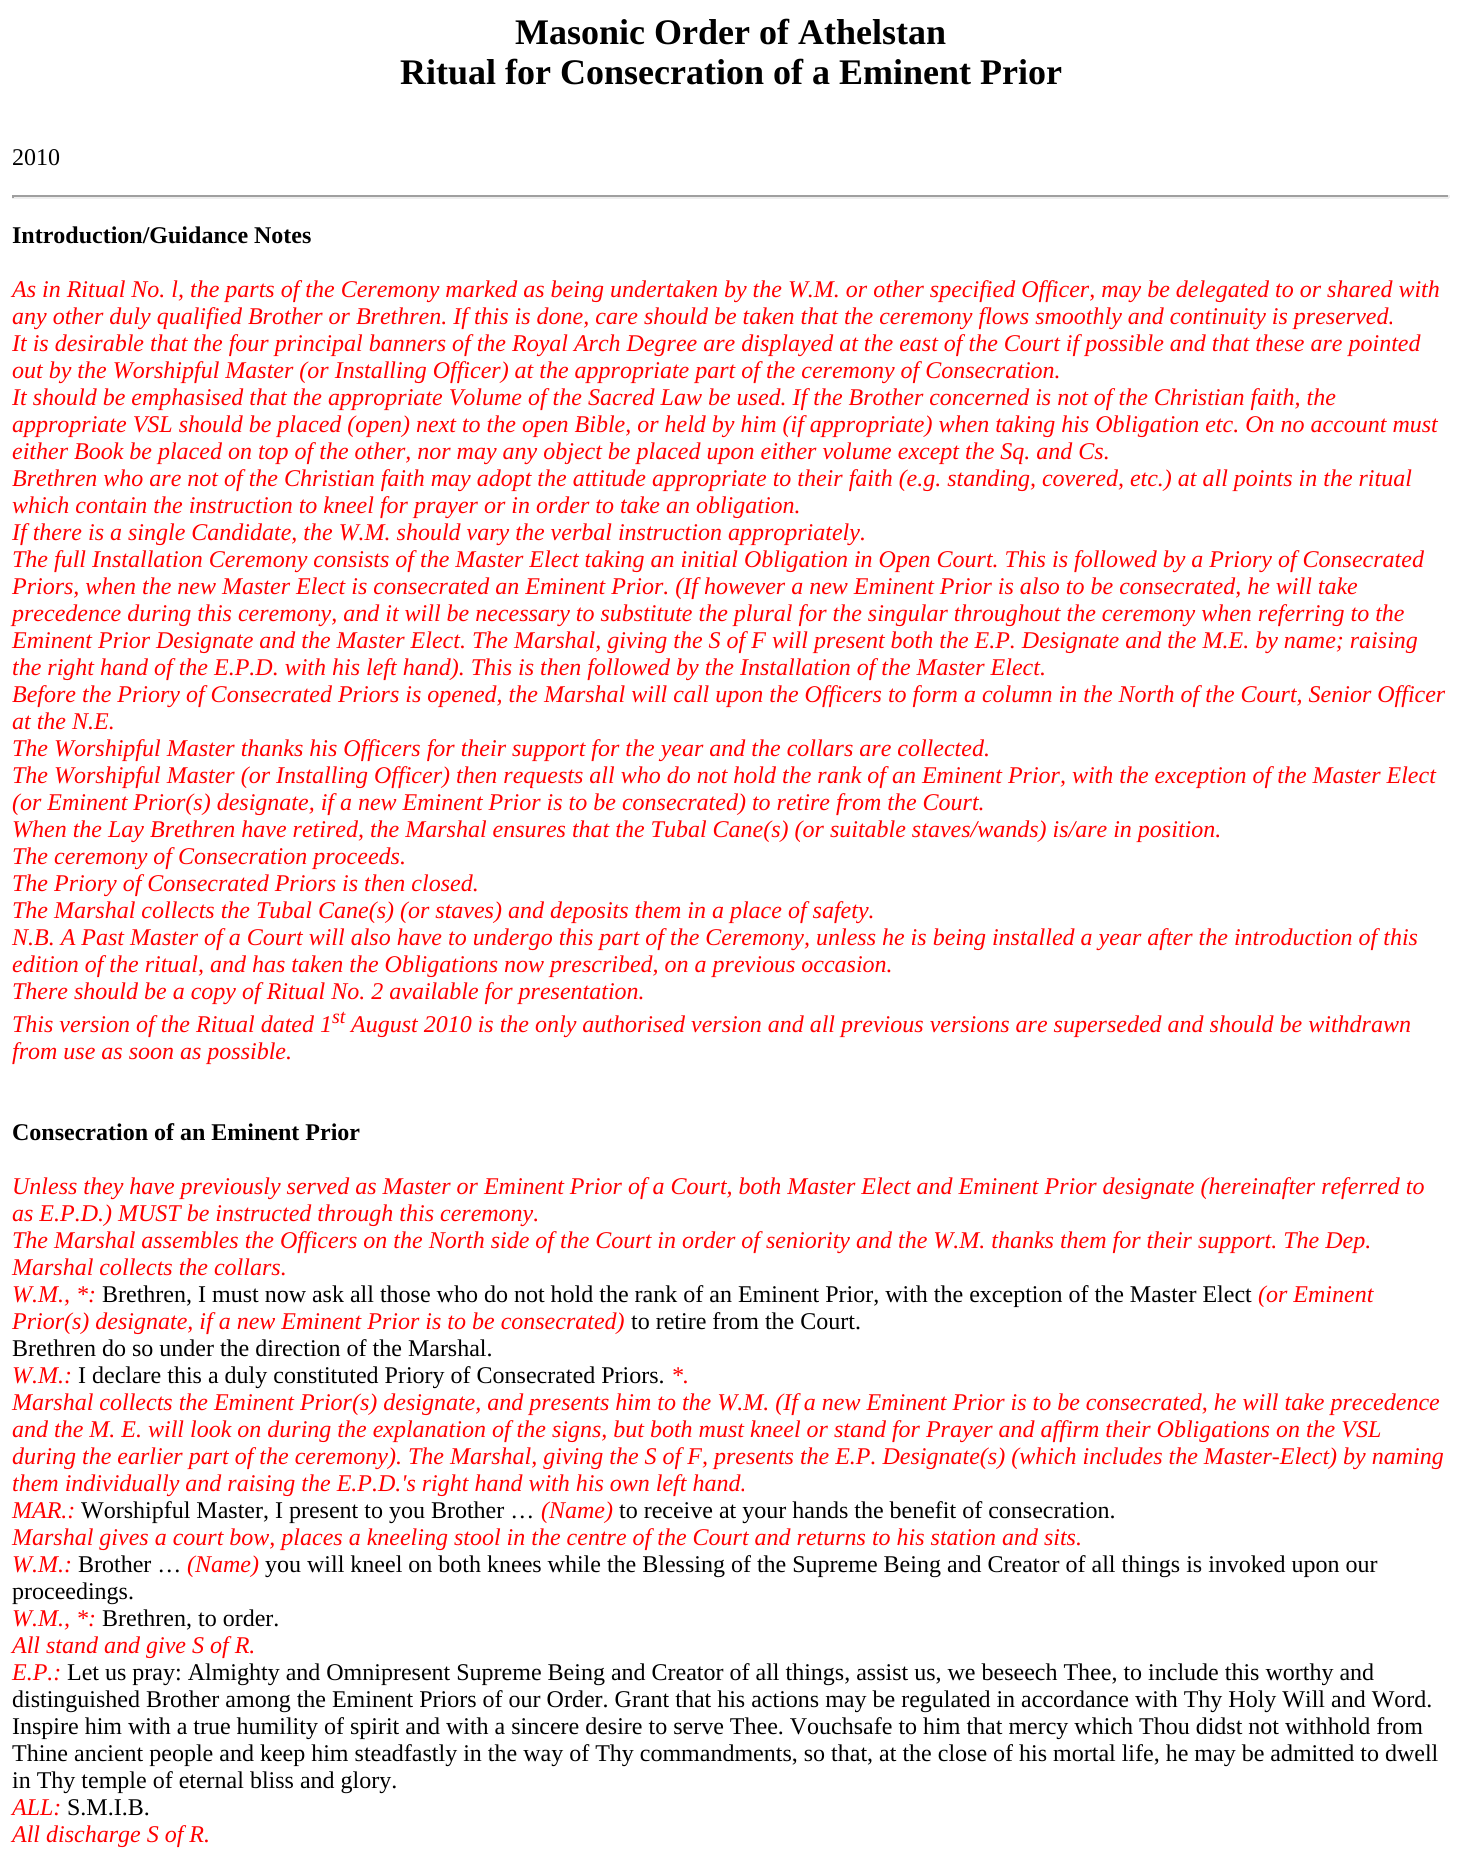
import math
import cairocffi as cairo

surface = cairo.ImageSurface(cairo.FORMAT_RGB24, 1461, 1850)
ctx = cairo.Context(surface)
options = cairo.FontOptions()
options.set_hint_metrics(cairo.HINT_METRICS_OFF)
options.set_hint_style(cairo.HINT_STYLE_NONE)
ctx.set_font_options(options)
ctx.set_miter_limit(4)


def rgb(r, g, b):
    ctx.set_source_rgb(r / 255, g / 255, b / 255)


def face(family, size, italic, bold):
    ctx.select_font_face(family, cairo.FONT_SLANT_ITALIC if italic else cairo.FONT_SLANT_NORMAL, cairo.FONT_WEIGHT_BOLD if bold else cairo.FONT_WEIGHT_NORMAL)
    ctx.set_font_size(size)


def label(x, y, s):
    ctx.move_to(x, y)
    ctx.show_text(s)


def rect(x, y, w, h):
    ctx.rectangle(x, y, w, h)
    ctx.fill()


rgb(255, 255, 255)
ctx.paint()
face('Liberation Serif', 36, 0, 1)
rgb(0, 0, 0)
label(515, 44, 'Masonic Order of Athelstan')
label(400, 84, 'Ritual for Consecration of a Eminent Prior')
face('Liberation Serif', 24, 0, 0)
label(12, 165, '2010')
rgb(159, 159, 159)
rect(12, 195, 1437, 2)
rgb(238, 238, 238)
rect(1448, 195, 2, 3)
rect(12, 197, 1437, 2)
rgb(159, 159, 159)
rect(12, 195, 2, 3)
face('Liberation Serif', 24, 0, 1)
rgb(0, 0, 0)
label(12, 243, 'Introduction/Guidance Notes')
face('Liberation Serif', 24, 1, 0)
rgb(255, 0, 0)
label(12, 297, 'As in Ritual No. l, the parts of the Ceremony marked as being undertaken by the W.M. or other specified Officer, may be delegated to or shared with')
label(12, 324, 'any other duly qualified Brother or Brethren. If this is done, care should be taken that the ceremony flows smoothly and continuity is preserved.')
label(12, 351, 'It is desirable that the four principal banners of the Royal Arch Degree are displayed at the east of the Court if possible and that these are pointed')
label(12, 378, 'out by the Worshipful Master (or Installing Officer) at the appropriate part of the ceremony of Consecration.')
label(12, 405, 'It should be emphasised that the appropriate Volume of the Sacred Law be used. If the Brother concerned is not of the Christian faith, the')
label(12, 432, 'appropriate VSL should be placed (open) next to the open Bible, or held by him (if appropriate) when taking his Obligation etc. On no account must')
label(12, 459, 'either Book be placed on top of the other, nor may any object be placed upon either volume except the Sq. and Cs.')
label(12, 486, 'Brethren who are not of the Christian faith may adopt the attitude appropriate to their faith (e.g. standing, covered, etc.) at all points in the ritual')
label(12, 513, 'which contain the instruction to kneel for prayer or in order to take an obligation.')
label(12, 540, 'If there is a single Candidate, the W.M. should vary the verbal instruction appropriately.')
label(12, 567, 'The full Installation Ceremony consists of the Master Elect taking an initial Obligation in Open Court. This is followed by a Priory of Consecrated')
label(12, 594, 'Priors, when the new Master Elect is consecrated an Eminent Prior. (If however a new Eminent Prior is also to be consecrated, he will take')
label(12, 621, 'precedence during this ceremony, and it will be necessary to substitute the plural for the singular throughout the ceremony when referring to the')
label(12, 648, 'Eminent Prior Designate and the Master Elect. The Marshal, giving the S of F will present both the E.P. Designate and the M.E. by name; raising')
label(12, 675, 'the right hand of the E.P.D. with his left hand). This is then followed by the Installation of the Master Elect.')
label(12, 702, 'Before the Priory of Consecrated Priors is opened, the Marshal will call upon the Officers to form a column in the North of the Court, Senior Officer')
label(12, 729, 'at the N.E.')
label(12, 756, 'The Worshipful Master thanks his Officers for their support for the year and the collars are collected.')
label(12, 783, 'The Worshipful Master (or Installing Officer) then requests all who do not hold the rank of an Eminent Prior, with the exception of the Master Elect')
label(12, 810, '(or Eminent Prior(s) designate, if a new Eminent Prior is to be consecrated) to retire from the Court.')
label(12, 837, 'When the Lay Brethren have retired, the Marshal ensures that the Tubal Cane(s) (or suitable staves/wands) is/are in position.')
label(12, 864, 'The ceremony of Consecration proceeds.')
label(12, 891, 'The Priory of Consecrated Priors is then closed.')
label(12, 918, 'The Marshal collects the Tubal Cane(s) (or staves) and deposits them in a place of safety.')
label(12, 945, 'N.B. A Past Master of a Court will also have to undergo this part of the Ceremony, unless he is being installed a year after the introduction of this')
label(12, 972, 'edition of the ritual, and has taken the Obligations now prescribed, on a previous occasion.')
label(12, 999, 'There should be a copy of Ritual No. 2 available for presentation.')
label(12, 1032, 'This version of the Ritual dated 1')
face('Liberation Serif', 20, 1, 0)
label(332, 1023, 'st')
face('Liberation Serif', 24, 1, 0)
label(351, 1032, 'August 2010 is the only authorised version and all previous versions are superseded and should be withdrawn')
label(12, 1059, 'from use as soon as possible.')
face('Liberation Serif', 24, 0, 1)
rgb(0, 0, 0)
label(12, 1140, 'Consecration of an Eminent Prior')
face('Liberation Serif', 24, 1, 0)
rgb(255, 0, 0)
label(12, 1194, 'Unless they have previously served as Master or Eminent Prior of a Court, both Master Elect and Eminent Prior designate (hereinafter referred to')
label(12, 1221, 'as E.P.D.) MUST be instructed through this ceremony.')
label(12, 1248, 'The Marshal assembles the Officers on the North side of the Court in order of seniority and the W.M. thanks them for their support. The Dep.')
label(12, 1275, 'Marshal collects the collars.')
label(12, 1302, 'W.M., *:')
face('Liberation Serif', 24, 0, 0)
rgb(0, 0, 0)
label(102, 1302, 'Brethren, I must now ask all those who do not hold the rank of an Eminent Prior, with the exception of the Master Elect')
face('Liberation Serif', 24, 1, 0)
rgb(255, 0, 0)
label(1258, 1302, '(or Eminent')
label(12, 1329, 'Prior(s) designate, if a new Eminent Prior is to be consecrated)')
face('Liberation Serif', 24, 0, 0)
rgb(0, 0, 0)
label(631, 1329, 'to retire from the Court.')
label(12, 1356, 'Brethren do so under the direction of the Marshal.')
face('Liberation Serif', 24, 1, 0)
rgb(255, 0, 0)
label(12, 1383, 'W.M.:')
face('Liberation Serif', 24, 0, 0)
rgb(0, 0, 0)
label(78, 1383, 'I declare this a duly constituted Priory of Consecrated Priors.')
face('Liberation Serif', 24, 1, 0)
rgb(255, 0, 0)
label(671, 1383, '*.')
label(12, 1410, 'Marshal collects the Eminent Prior(s) designate, and presents him to the W.M. (If a new Eminent Prior is to be consecrated, he will take precedence')
label(12, 1437, 'and the M. E. will look on during the explanation of the signs, but both must kneel or stand for Prayer and affirm their Obligations on the VSL')
label(12, 1464, 'during the earlier part of the ceremony). The Marshal, giving the S of F, presents the E.P. Designate(s) (which includes the Master-Elect) by naming')
label(12, 1491, 'them individually and raising the E.P.D.\'s right hand with his own left hand.')
label(12, 1518, 'MAR.:')
face('Liberation Serif', 24, 0, 0)
rgb(0, 0, 0)
label(81, 1518, 'Worshipful Master, I present to you Brother …')
face('Liberation Serif', 24, 1, 0)
rgb(255, 0, 0)
label(541, 1518, '(Name)')
face('Liberation Serif', 24, 0, 0)
rgb(0, 0, 0)
label(619, 1518, 'to receive at your hands the benefit of consecration.')
face('Liberation Serif', 24, 1, 0)
rgb(255, 0, 0)
label(12, 1545, 'Marshal gives a court bow, places a kneeling stool in the centre of the Court and returns to his station and sits.')
label(12, 1572, 'W.M.:')
face('Liberation Serif', 24, 0, 0)
rgb(0, 0, 0)
label(78, 1572, 'Brother …')
face('Liberation Serif', 24, 1, 0)
rgb(255, 0, 0)
label(187, 1572, '(Name)')
face('Liberation Serif', 24, 0, 0)
rgb(0, 0, 0)
label(265, 1572, 'you will kneel on both knees while the Blessing of the Supreme Being and Creator of all things is invoked upon our')
label(12, 1599, 'proceedings.')
face('Liberation Serif', 24, 1, 0)
rgb(255, 0, 0)
label(12, 1626, 'W.M., *:')
face('Liberation Serif', 24, 0, 0)
rgb(0, 0, 0)
label(102, 1626, 'Brethren, to order.')
face('Liberation Serif', 24, 1, 0)
rgb(255, 0, 0)
label(12, 1653, 'All stand and give S of R.')
label(12, 1680, 'E.P.:')
face('Liberation Serif', 24, 0, 0)
rgb(0, 0, 0)
label(67, 1680, 'Let us pray: Almighty and Omnipresent Supreme Being and Creator of all things, assist us, we beseech Thee, to include this worthy and')
label(12, 1707, 'distinguished Brother among the Eminent Priors of our Order. Grant that his actions may be regulated in accordance with Thy Holy Will and Word.')
label(12, 1734, 'Inspire him with a true humility of spirit and with a sincere desire to serve Thee. Vouchsafe to him that mercy which Thou didst not withhold from')
label(12, 1761, 'Thine ancient people and keep him steadfastly in the way of Thy commandments, so that, at the close of his mortal life, he may be admitted to dwell')
label(12, 1788, 'in Thy temple of eternal bliss and glory.')
face('Liberation Serif', 24, 1, 0)
rgb(255, 0, 0)
label(12, 1815, 'ALL:')
face('Liberation Serif', 24, 0, 0)
rgb(0, 0, 0)
label(67, 1815, 'S.M.I.B.')
face('Liberation Serif', 24, 1, 0)
rgb(255, 0, 0)
label(12, 1842, 'All discharge S of R.')
surface.write_to_png('render.png')
